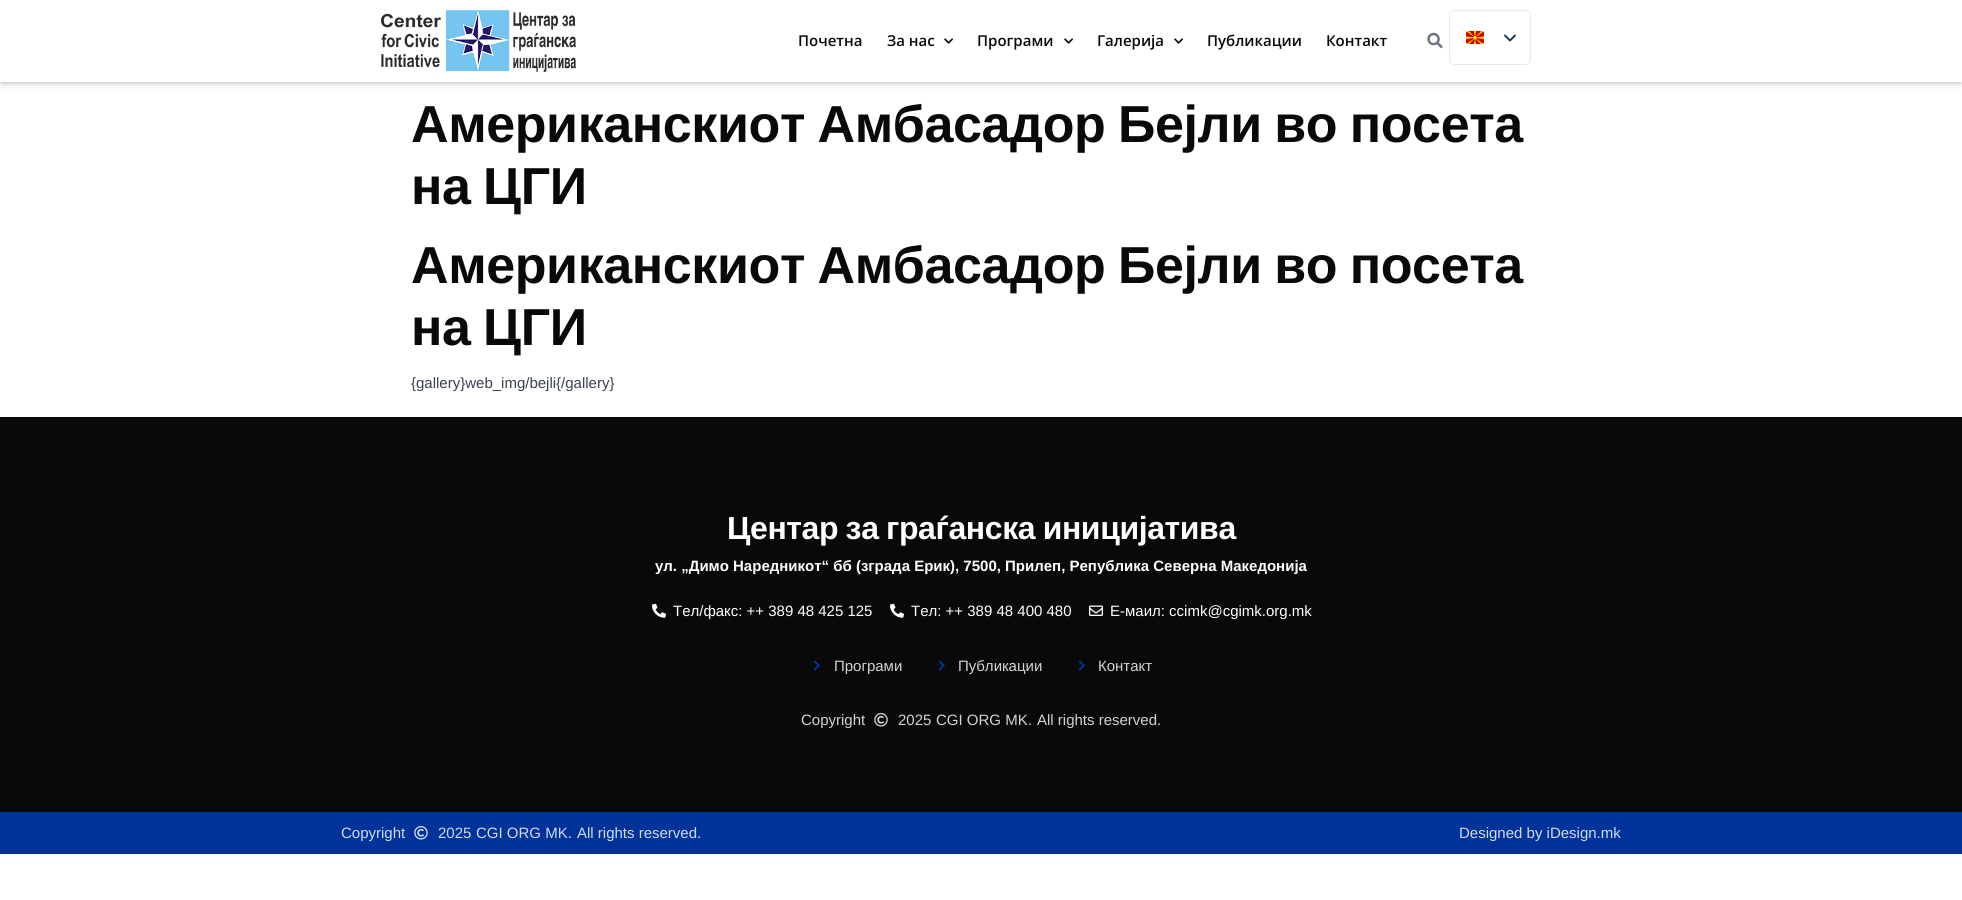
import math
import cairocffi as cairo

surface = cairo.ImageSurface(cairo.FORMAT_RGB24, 1962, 900)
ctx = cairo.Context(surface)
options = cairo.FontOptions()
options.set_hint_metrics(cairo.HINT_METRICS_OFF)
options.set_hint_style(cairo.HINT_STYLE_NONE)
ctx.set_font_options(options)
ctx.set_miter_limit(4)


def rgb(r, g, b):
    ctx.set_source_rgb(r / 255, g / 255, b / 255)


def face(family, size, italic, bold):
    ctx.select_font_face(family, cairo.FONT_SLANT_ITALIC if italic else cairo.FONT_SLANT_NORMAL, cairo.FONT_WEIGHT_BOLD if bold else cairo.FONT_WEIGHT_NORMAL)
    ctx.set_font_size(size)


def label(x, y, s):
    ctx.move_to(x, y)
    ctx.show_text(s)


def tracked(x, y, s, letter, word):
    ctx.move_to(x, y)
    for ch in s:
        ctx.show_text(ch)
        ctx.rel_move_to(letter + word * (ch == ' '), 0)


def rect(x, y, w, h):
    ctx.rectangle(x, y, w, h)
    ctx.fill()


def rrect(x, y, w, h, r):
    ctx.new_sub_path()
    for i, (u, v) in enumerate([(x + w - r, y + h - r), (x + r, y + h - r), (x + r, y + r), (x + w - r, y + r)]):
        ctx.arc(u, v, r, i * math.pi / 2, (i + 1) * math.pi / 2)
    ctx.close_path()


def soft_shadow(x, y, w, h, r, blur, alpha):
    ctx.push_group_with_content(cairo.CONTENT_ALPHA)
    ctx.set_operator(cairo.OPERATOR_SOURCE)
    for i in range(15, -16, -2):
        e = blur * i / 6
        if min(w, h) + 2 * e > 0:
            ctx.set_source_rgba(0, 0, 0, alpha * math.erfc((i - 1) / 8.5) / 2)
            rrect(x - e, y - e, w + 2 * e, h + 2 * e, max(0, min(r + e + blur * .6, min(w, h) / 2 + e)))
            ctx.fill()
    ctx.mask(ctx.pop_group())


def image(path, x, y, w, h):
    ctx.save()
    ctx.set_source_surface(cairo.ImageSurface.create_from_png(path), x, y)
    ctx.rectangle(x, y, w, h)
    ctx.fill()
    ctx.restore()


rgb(255, 255, 255)
ctx.paint()
ctx.save()
ctx.rectangle(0, 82, 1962, 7)
ctx.clip()
rgb(0, 0, 0)
soft_shadow(2, 2, 1958, 78, 0, 5, 0.5)
ctx.restore()
image('image0.png', 381, 10, 195, 62)
face('Open Sans SemiBold', 15, 0, 0)
rgb(9, 9, 9)
label(798, 46, 'Почетна')
label(887, 46, 'За нас')
image('image1.png', 944, 38, 9, 6)
label(977, 46, 'Програми')
image('image1.png', 1064, 38, 9, 6)
label(1097, 46, 'Галерија')
image('image1.png', 1174, 38, 9, 6)
label(1207, 46, 'Публикации')
label(1326, 46, 'Контакт')
image('image2.png', 1427, 32, 16, 17)
rrect(1449.5, 10.5, 81, 54, 4.5)
rgb(232, 235, 238)
ctx.set_line_width(1)
ctx.stroke()
image('image3.png', 1466, 31, 18, 13)
ctx.new_path()
ctx.move_to(1505, 35.5)
ctx.line_to(1510, 40.5)
ctx.line_to(1515, 35.5)
rgb(20, 56, 82)
ctx.set_line_width(1.9)
ctx.set_line_cap(cairo.LINE_CAP_ROUND)
ctx.set_line_join(cairo.LINE_JOIN_ROUND)
ctx.stroke()
face('Liberation Sans', 52, 0, 1)
rgb(9, 9, 9)
tracked(411, 142, 'Американскиот Амбасадор Бејли во посета', -0.4, -1.5)
tracked(411, 204, 'на ЦГИ', -0.4, -1.5)
tracked(411, 283, 'Американскиот Амбасадор Бејли во посета', -0.4, -1.5)
tracked(411, 345, 'на ЦГИ', -0.4, -1.5)
face('Liberation Sans', 15, 0, 0)
rgb(57, 65, 77)
label(411, 388, '{gallery}web_img/bejli{/gallery}')
rgb(9, 9, 9)
rect(0, 417, 1962, 395)
face('Liberation Sans', 32, 0, 1)
rgb(255, 255, 255)
tracked(727, 539, 'Центар за граѓанска иницијатива', -0.4, -1)
face('Liberation Sans', 15, 0, 1)
label(655, 571, 'ул. „Димо Наредникот“ бб (зграда Ерик), 7500, Прилеп, Република Северна Македонија')
image('image4.png', 652, 603, 14, 15)
face('Liberation Sans', 15, 0, 0)
label(673, 616, 'Тел/факс: ++ 389 48 425 125')
image('image4.png', 890, 603, 14, 15)
label(911, 616, 'Тел: ++ 389 48 400 480')
image('image5.png', 1089, 605, 14, 11)
label(1110, 616, 'Е-маил: ccimk@cgimk.org.mk')
image('image6.png', 813, 660, 7, 11)
rgb(211, 211, 211)
label(834, 671, 'Програми')
image('image6.png', 938, 660, 7, 11)
label(958, 671, 'Публикации')
image('image6.png', 1078, 660, 7, 11)
label(1098, 671, 'Контакт')
label(801, 725, 'Copyright')
image('image7.png', 874, 713, 14, 14)
label(898, 725, '2025')
label(936, 725, 'CGI ORG MK.')
label(1037, 725, 'All rights reserved.')
rgb(0, 51, 153)
rect(0, 812, 1962, 42)
rgb(209, 218, 237)
label(341, 838, 'Copyright')
image('image8.png', 414, 826, 14, 14)
label(438, 838, '2025')
label(476, 838, 'CGI ORG MK.')
label(577, 838, 'All rights reserved.')
label(1459, 838, 'Designed by iDesign.mk')
surface.write_to_png('render.png')
